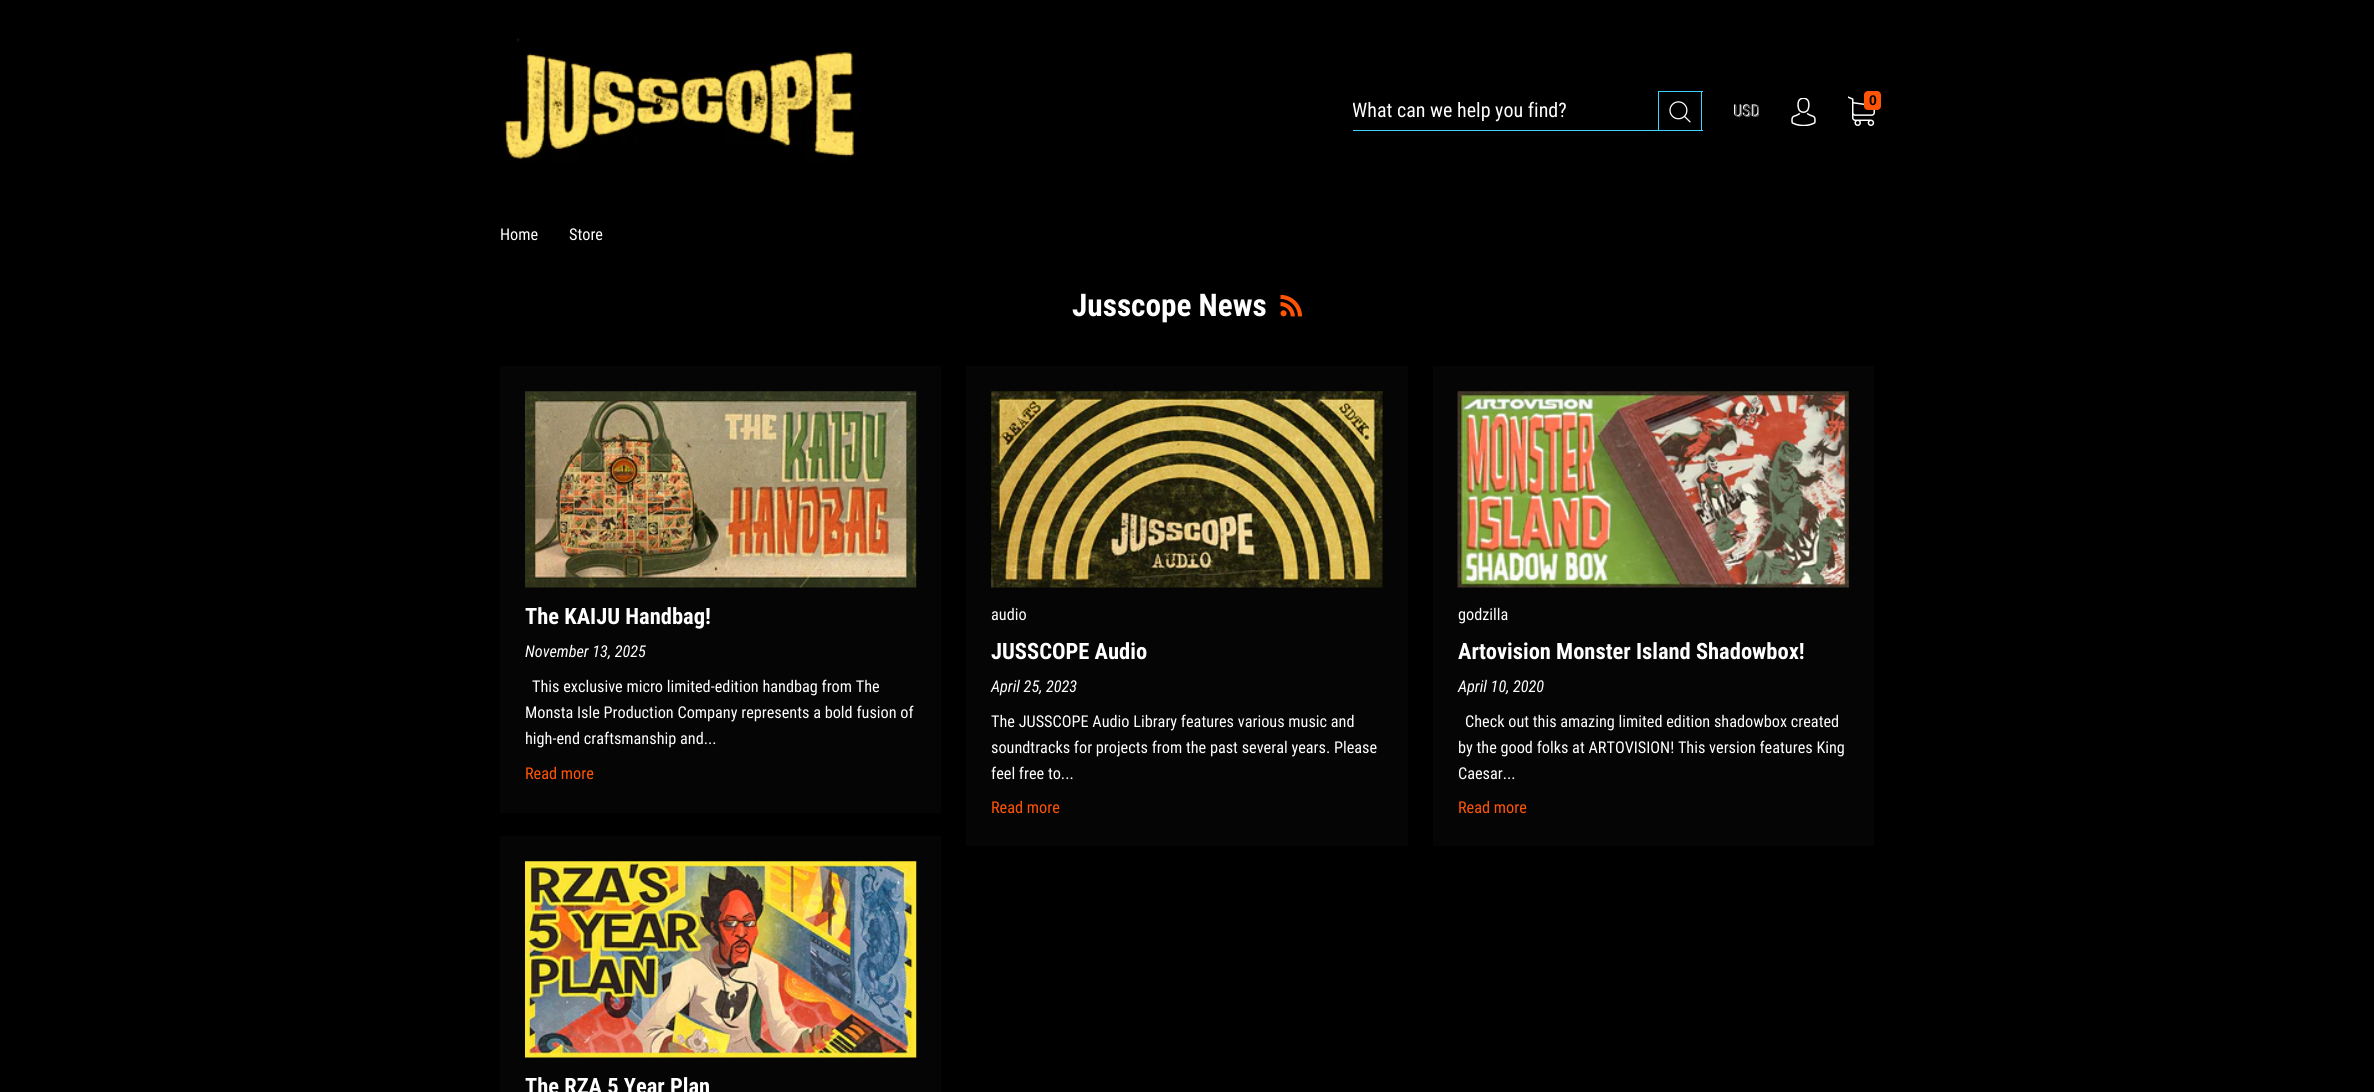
import math
import cairocffi as cairo

surface = cairo.ImageSurface(cairo.FORMAT_RGB24, 2374, 1092)
ctx = cairo.Context(surface)
options = cairo.FontOptions()
options.set_hint_metrics(cairo.HINT_METRICS_OFF)
options.set_hint_style(cairo.HINT_STYLE_NONE)
ctx.set_font_options(options)
ctx.set_miter_limit(4)


def rgb(r, g, b):
    ctx.set_source_rgb(r / 255, g / 255, b / 255)


def face(family, size, italic, bold):
    ctx.select_font_face(family, cairo.FONT_SLANT_ITALIC if italic else cairo.FONT_SLANT_NORMAL, cairo.FONT_WEIGHT_BOLD if bold else cairo.FONT_WEIGHT_NORMAL)
    ctx.set_font_size(size)


def label(x, y, s):
    ctx.move_to(x, y)
    ctx.show_text(s)


def rect(x, y, w, h):
    ctx.rectangle(x, y, w, h)
    ctx.fill()


def rrect(x, y, w, h, r):
    ctx.new_sub_path()
    for i, (u, v) in enumerate([(x + w - r, y + h - r), (x + r, y + h - r), (x + r, y + r), (x + w - r, y + r)]):
        ctx.arc(u, v, r, i * math.pi / 2, (i + 1) * math.pi / 2)
    ctx.close_path()


def image(path, x, y, w, h):
    ctx.save()
    ctx.set_source_surface(cairo.ImageSurface.create_from_png(path), x, y)
    ctx.rectangle(x, y, w, h)
    ctx.fill()
    ctx.restore()


rgb(0, 0, 0)
ctx.paint()
image('image0.png', 500, 38, 359, 127)
rgb(61, 210, 255)
rect(1353, 130, 350, 1)
ctx.save()
ctx.rectangle(1353, 99, 350, 24)
ctx.clip()
face('Roboto Condensed', 20, 0, 0)
rgb(255, 255, 255)
label(1352, 117, 'What can we help you find?')
ctx.restore()
rect(1658, 91, 45, 1)
rect(1701, 91, 1, 40)
rect(1658, 91, 1, 40)
image('image1.png', 1669, 101, 22, 22)
face('Roboto Condensed', 16.25, 0, 0)
rgb(255, 255, 255)
label(1733, 116, 'USD')
ctx.save()
ctx.rectangle(1735, 100, 24, 25)
ctx.clip()
rgb(90, 90, 90)
label(1734, 117, 'USD')
ctx.restore()
image('image2.png', 1791, 98, 25, 28)
image('image3.png', 1848, 96, 27, 30)
rgb(255, 84, 6)
rrect(1864, 91, 17, 19, 4)
ctx.fill()
face('Liberation Sans', 14, 0, 1)
rgb(0, 0, 0)
label(1869, 105, '0')
face('Roboto Condensed', 16.25, 0, 0)
rgb(255, 255, 255)
label(500, 240, 'Home')
label(569, 240, 'Store')
face('Roboto Condensed', 31.25, 0, 1)
label(1072, 316, 'Jusscope News')
image('image4.png', 1280, 294, 22, 23)
rgb(5, 5, 5)
rect(500, 366, 441, 447)
image('image5.png', 525, 391, 392, 197)
face('Roboto Condensed', 22.5, 0, 1)
rgb(255, 255, 255)
label(525, 624, 'The KAIJU Handbag!')
face('Roboto Condensed', 16.25, 1, 0)
label(525, 657, 'November 13, 2025')
face('Roboto Condensed', 16.25, 0, 0)
label(532, 692, 'This exclusive micro limited-edition handbag from The')
label(525, 718, 'Monsta Isle Production Company represents a bold fusion of')
label(525, 744, 'high-end craftsmanship and...')
rgb(255, 84, 6)
label(525, 779, 'Read more')
rgb(5, 5, 5)
rect(966, 366, 442, 480)
image('image6.png', 991, 391, 392, 197)
rgb(255, 255, 255)
label(991, 620, 'audio')
face('Roboto Condensed', 22.5, 0, 1)
label(991, 659, 'JUSSCOPE Audio')
face('Roboto Condensed', 16.25, 1, 0)
label(991, 692, 'April 25, 2023')
face('Roboto Condensed', 16.25, 0, 0)
label(991, 727, 'The JUSSCOPE Audio Library features various music and')
label(991, 753, 'soundtracks for projects from the past several years. Please')
label(991, 779, 'feel free to...')
rgb(255, 84, 6)
label(991, 813, 'Read more')
rgb(5, 5, 5)
rect(1433, 366, 441, 480)
image('image7.png', 1457, 391, 392, 197)
rgb(255, 255, 255)
label(1458, 620, 'godzilla')
face('Roboto Condensed', 22.5, 0, 1)
label(1458, 659, 'Artovision Monster Island Shadowbox!')
face('Roboto Condensed', 16.25, 1, 0)
label(1458, 692, 'April 10, 2020')
face('Roboto Condensed', 16.25, 0, 0)
label(1465, 727, 'Check out this amazing limited edition shadowbox created')
label(1458, 753, 'by the good folks at ARTOVISION! This version features King')
label(1458, 779, 'Caesar...')
rgb(255, 84, 6)
label(1458, 813, 'Read more')
rgb(5, 5, 5)
rect(500, 836, 441, 256)
image('image8.png', 525, 861, 392, 197)
face('Roboto Condensed', 22.5, 0, 1)
rgb(255, 255, 255)
label(525, 1094, 'The RZA 5 Year Plan')
surface.write_to_png('render.png')
